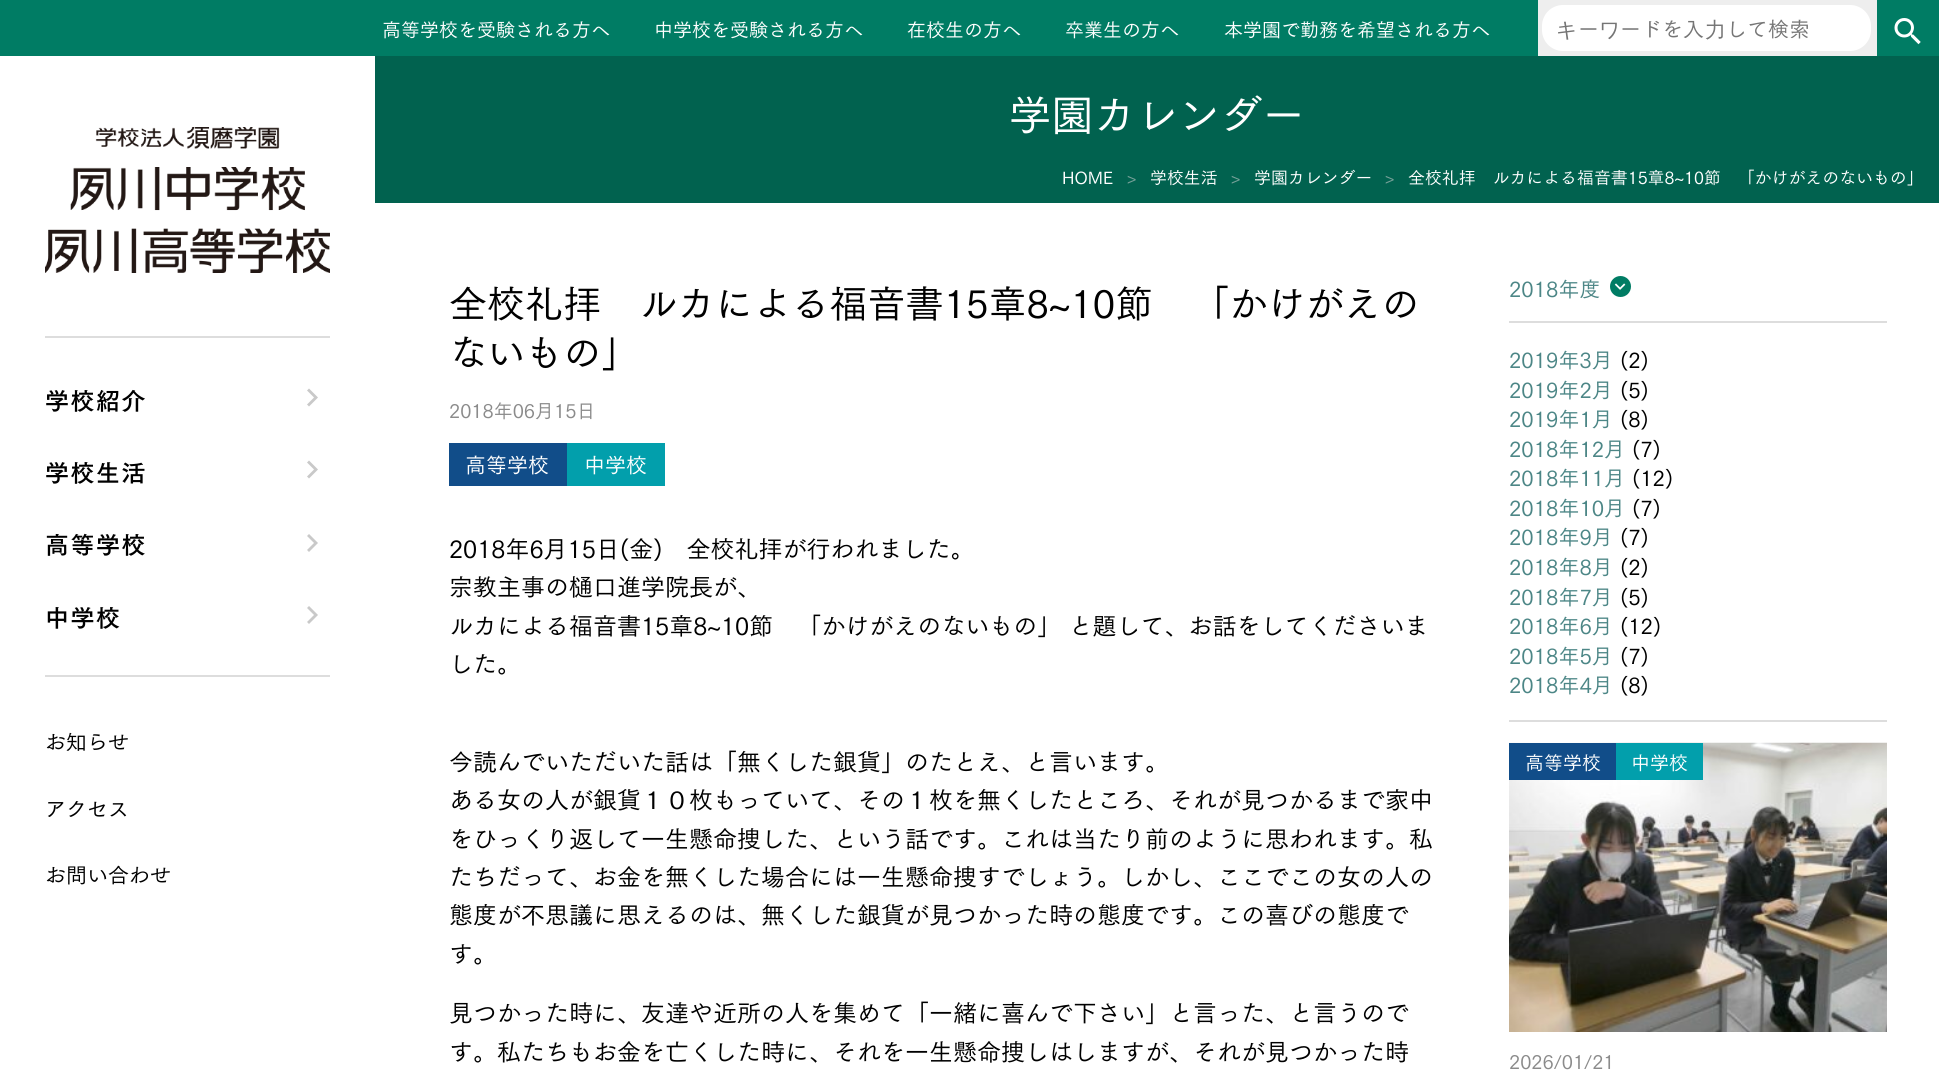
import math
import cairocffi as cairo

surface = cairo.ImageSurface(cairo.FORMAT_RGB24, 1939, 1081)
ctx = cairo.Context(surface)
options = cairo.FontOptions()
options.set_hint_metrics(cairo.HINT_METRICS_OFF)
options.set_hint_style(cairo.HINT_STYLE_NONE)
ctx.set_font_options(options)
ctx.set_miter_limit(4)


def rgb(r, g, b):
    ctx.set_source_rgb(r / 255, g / 255, b / 255)


def face(family, size, italic, bold):
    ctx.select_font_face(family, cairo.FONT_SLANT_ITALIC if italic else cairo.FONT_SLANT_NORMAL, cairo.FONT_WEIGHT_BOLD if bold else cairo.FONT_WEIGHT_NORMAL)
    ctx.set_font_size(size)


def label(x, y, s):
    ctx.move_to(x, y)
    ctx.show_text(s)


def tracked(x, y, s, letter, word):
    ctx.move_to(x, y)
    for ch in s:
        ctx.show_text(ch)
        ctx.rel_move_to(letter + word * (ch == ' '), 0)


def rect(x, y, w, h):
    ctx.rectangle(x, y, w, h)
    ctx.fill()


def rrect(x, y, w, h, r):
    ctx.new_sub_path()
    for i, (u, v) in enumerate([(x + w - r, y + h - r), (x + r, y + h - r), (x + r, y + r), (x + w - r, y + r)]):
        ctx.arc(u, v, r, i * math.pi / 2, (i + 1) * math.pi / 2)
    ctx.close_path()


def image(path, x, y, w, h):
    ctx.save()
    ctx.set_source_surface(cairo.ImageSurface.create_from_png(path), x, y)
    ctx.rectangle(x, y, w, h)
    ctx.fill()
    ctx.restore()


rgb(255, 255, 255)
ctx.paint()
rgb(0, 124, 100)
rect(0, 0, 1538, 56)
face('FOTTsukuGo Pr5 Medium', 19, 0, 0)
rgb(255, 255, 255)
label(382, 37, '高等学校を受験される方へ')
label(654, 37, '中学校を受験される方へ')
label(907, 37, '在校生の方へ')
label(1065, 37, '卒業生の方へ')
label(1224, 37, '本学園で勤務を希望される方へ')
rgb(238, 238, 238)
rect(1538, 0, 339, 56)
rgb(255, 255, 255)
rrect(1543.5, 6.5, 326, 43, 19.5)
ctx.fill_preserve()
ctx.set_line_width(3)
ctx.stroke()
face('WenQuanYi Zen Hei Medium', 21, 0, 0)
rgb(117, 117, 117)
label(1556, 37, 'キ')
face('FOTTsukuGo Pr5 Medium', 21, 0, 0)
label(1578, 37, 'ー')
face('WenQuanYi Zen Hei Medium', 21, 0, 0)
label(1599, 37, 'ワ')
face('FOTTsukuGo Pr5 Medium', 21, 0, 0)
label(1620, 37, 'ードを入')
face('WenQuanYi Zen Hei Medium', 21, 0, 0)
label(1705, 37, '力')
face('FOTTsukuGo Pr5 Medium', 21, 0, 0)
label(1726, 37, 'して検索')
rgb(0, 124, 100)
rect(1877, 0, 62, 56)
image('image0.png', 1894, 18, 27, 27)
rgb(221, 221, 221)
rect(45, 336, 285, 2)
image('image1.png', 45, 127, 285, 146)
face('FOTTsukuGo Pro', 24, 0, 1)
rgb(0, 0, 0)
tracked(45, 410, '学校紹介', 1.5, 0)
rgb(201, 201, 201)
ctx.new_path()
ctx.move_to(309, 388.5)
ctx.line_to(318, 397.5)
ctx.line_to(309, 406.5)
ctx.line_to(307, 404.5)
ctx.line_to(314, 397.5)
ctx.line_to(307, 390.5)
ctx.close_path()
ctx.fill()
rgb(0, 0, 0)
tracked(45, 482, '学校生活', 1.5, 0)
rgb(201, 201, 201)
ctx.new_path()
ctx.move_to(309, 460.5)
ctx.line_to(318, 469.5)
ctx.line_to(309, 478.5)
ctx.line_to(307, 476.5)
ctx.line_to(314, 469.5)
ctx.line_to(307, 462.5)
ctx.close_path()
ctx.fill()
rgb(0, 0, 0)
tracked(45, 554, '高等学校', 1.5, 0)
rgb(201, 201, 201)
ctx.new_path()
ctx.move_to(309, 534)
ctx.line_to(318, 543)
ctx.line_to(309, 552)
ctx.line_to(307, 550)
ctx.line_to(314, 543)
ctx.line_to(307, 536)
ctx.close_path()
ctx.fill()
rgb(0, 0, 0)
tracked(45, 627, '中学校', 1.5, 0)
rgb(201, 201, 201)
ctx.new_path()
ctx.move_to(309, 606)
ctx.line_to(318, 615)
ctx.line_to(309, 624)
ctx.line_to(307, 622)
ctx.line_to(314, 615)
ctx.line_to(307, 608)
ctx.close_path()
ctx.fill()
rgb(221, 221, 221)
rect(45, 675, 285, 2)
face('FOTTsukuGo Pr5 Medium', 21, 0, 0)
rgb(0, 0, 0)
label(45, 750, 'お知らせ')
label(45, 817, 'アクセス')
label(45, 883, 'お問い合わせ')
rgb(1, 98, 79)
rect(375, 56, 1564, 147)
face('FOTTsukuGo Pr5 Medium', 42.25, 0, 0)
rgb(255, 255, 255)
label(1009, 131, '学園カレンダー')
face('FOTTsukuGo Pr5 Medium', 16.9, 0, 0)
label(1062, 184, 'HOME')
rgb(118, 160, 152)
label(1127, 184, '>')
rgb(255, 255, 255)
label(1150, 184, '学校生活')
rgb(118, 160, 152)
label(1231, 184, '>')
rgb(255, 255, 255)
label(1254, 184, '学園カレンダー')
rgb(118, 160, 152)
label(1385, 184, '>')
rgb(255, 255, 255)
label(1408, 184, '全校礼拝　ルカによる福音書15章8~10節　「かけがえのないもの」')
face('FOTTsukuGo Pr5 Medium', 38.05, 0, 0)
rgb(0, 0, 0)
label(449, 318, '全校礼拝　ルカによる福音書15章8~10節　「かけがえの')
label(449, 367, 'ないもの」')
face('FOTTsukuGo Pr5 Medium', 19, 0, 0)
rgb(139, 139, 139)
label(449, 418, '2018年06月15日')
rgb(17, 77, 137)
rect(449, 443, 118, 43)
face('FOTTsukuGo Pr5 Medium', 21, 0, 0)
rgb(255, 255, 255)
label(465, 473, '高等学校')
rgb(2, 159, 172)
rect(567, 443, 98, 43)
rgb(255, 255, 255)
label(584, 473, '中学校')
face('FOTTsukuGo Pr5 Medium', 24, 0, 0)
rgb(0, 0, 0)
label(449, 558, '2018年6月15日(金)　全校礼拝が行われました。')
label(449, 596, '宗教主事の樋口進学院長が、')
label(449, 635, 'ルカによる福音書15章8~10節　「かけがえのないもの」 と題して、お話をしてくださいま')
label(449, 673, 'した。')
label(449, 771, '今読んでいただいた話は「無くした銀貨」のたとえ、と言います。')
label(449, 809, 'ある女の人が銀貨１０枚もっていて、その１枚を無くしたところ、それが見つかるまで家中')
label(449, 848, 'をひっくり返して一生懸命捜した、という話です。これは当たり前のように思われます。私')
label(449, 886, 'たちだって、お金を無くした場合には一生懸命捜すでしょう。しかし、ここでこの女の人の')
label(449, 924, '態度が不思議に思えるのは、無くした銀貨が見つかった時の態度です。この喜びの態度で')
label(449, 963, 'す。')
label(449, 1022, '見つかった時に、友達や近所の人を集めて「一緒に喜んで下さい」と言った、と言うので')
label(449, 1061, 'す。私たちもお金を亡くした時に、それを一生懸命捜しはしますが、それが見つかった時')
face('FOTTsukuGo Pr5 Medium', 21, 0, 0)
rgb(76, 134, 134)
label(1509, 297, '2018年度')
rgb(0, 124, 100)
ctx.new_path()
ctx.arc(1620.5, 286.5, 10.5, 0, 2 * math.pi)
ctx.fill()
image('image2.png', 1614, 283, 12, 7)
rgb(221, 221, 221)
rect(1509, 321, 378, 2)
rgb(76, 134, 134)
label(1509, 368, '2019年3月')
rgb(0, 0, 0)
label(1620, 368, '(2)')
rgb(76, 134, 134)
label(1509, 398, '2019年2月')
rgb(0, 0, 0)
label(1620, 398, '(5)')
rgb(76, 134, 134)
label(1509, 427, '2019年1月')
rgb(0, 0, 0)
label(1620, 427, '(8)')
rgb(76, 134, 134)
label(1509, 457, '2018年12月')
rgb(0, 0, 0)
label(1632, 457, '(7)')
rgb(76, 134, 134)
label(1509, 486, '2018年11月')
rgb(0, 0, 0)
label(1632, 486, '(12)')
rgb(76, 134, 134)
label(1509, 516, '2018年10月')
rgb(0, 0, 0)
label(1632, 516, '(7)')
rgb(76, 134, 134)
label(1509, 545, '2018年9月')
rgb(0, 0, 0)
label(1620, 545, '(7)')
rgb(76, 134, 134)
label(1509, 575, '2018年8月')
rgb(0, 0, 0)
label(1620, 575, '(2)')
rgb(76, 134, 134)
label(1509, 605, '2018年7月')
rgb(0, 0, 0)
label(1620, 605, '(5)')
rgb(76, 134, 134)
label(1509, 634, '2018年6月')
rgb(0, 0, 0)
label(1620, 634, '(12)')
rgb(76, 134, 134)
label(1509, 664, '2018年5月')
rgb(0, 0, 0)
label(1620, 664, '(7)')
rgb(76, 134, 134)
label(1509, 693, '2018年4月')
rgb(0, 0, 0)
label(1620, 693, '(8)')
rgb(221, 221, 221)
rect(1509, 720, 378, 2)
image('image3.png', 1509, 742, 378, 290)
rgb(17, 77, 137)
rect(1509, 743, 107, 37)
face('FOTTsukuGo Pr5 Medium', 19, 0, 0)
rgb(255, 255, 255)
label(1525, 770, '高等学校')
rgb(2, 159, 172)
rect(1616, 743, 87, 37)
rgb(255, 255, 255)
label(1631, 770, '中学校')
rgb(139, 139, 139)
label(1509, 1069, '2026/01/21')
surface.write_to_png('render.png')
